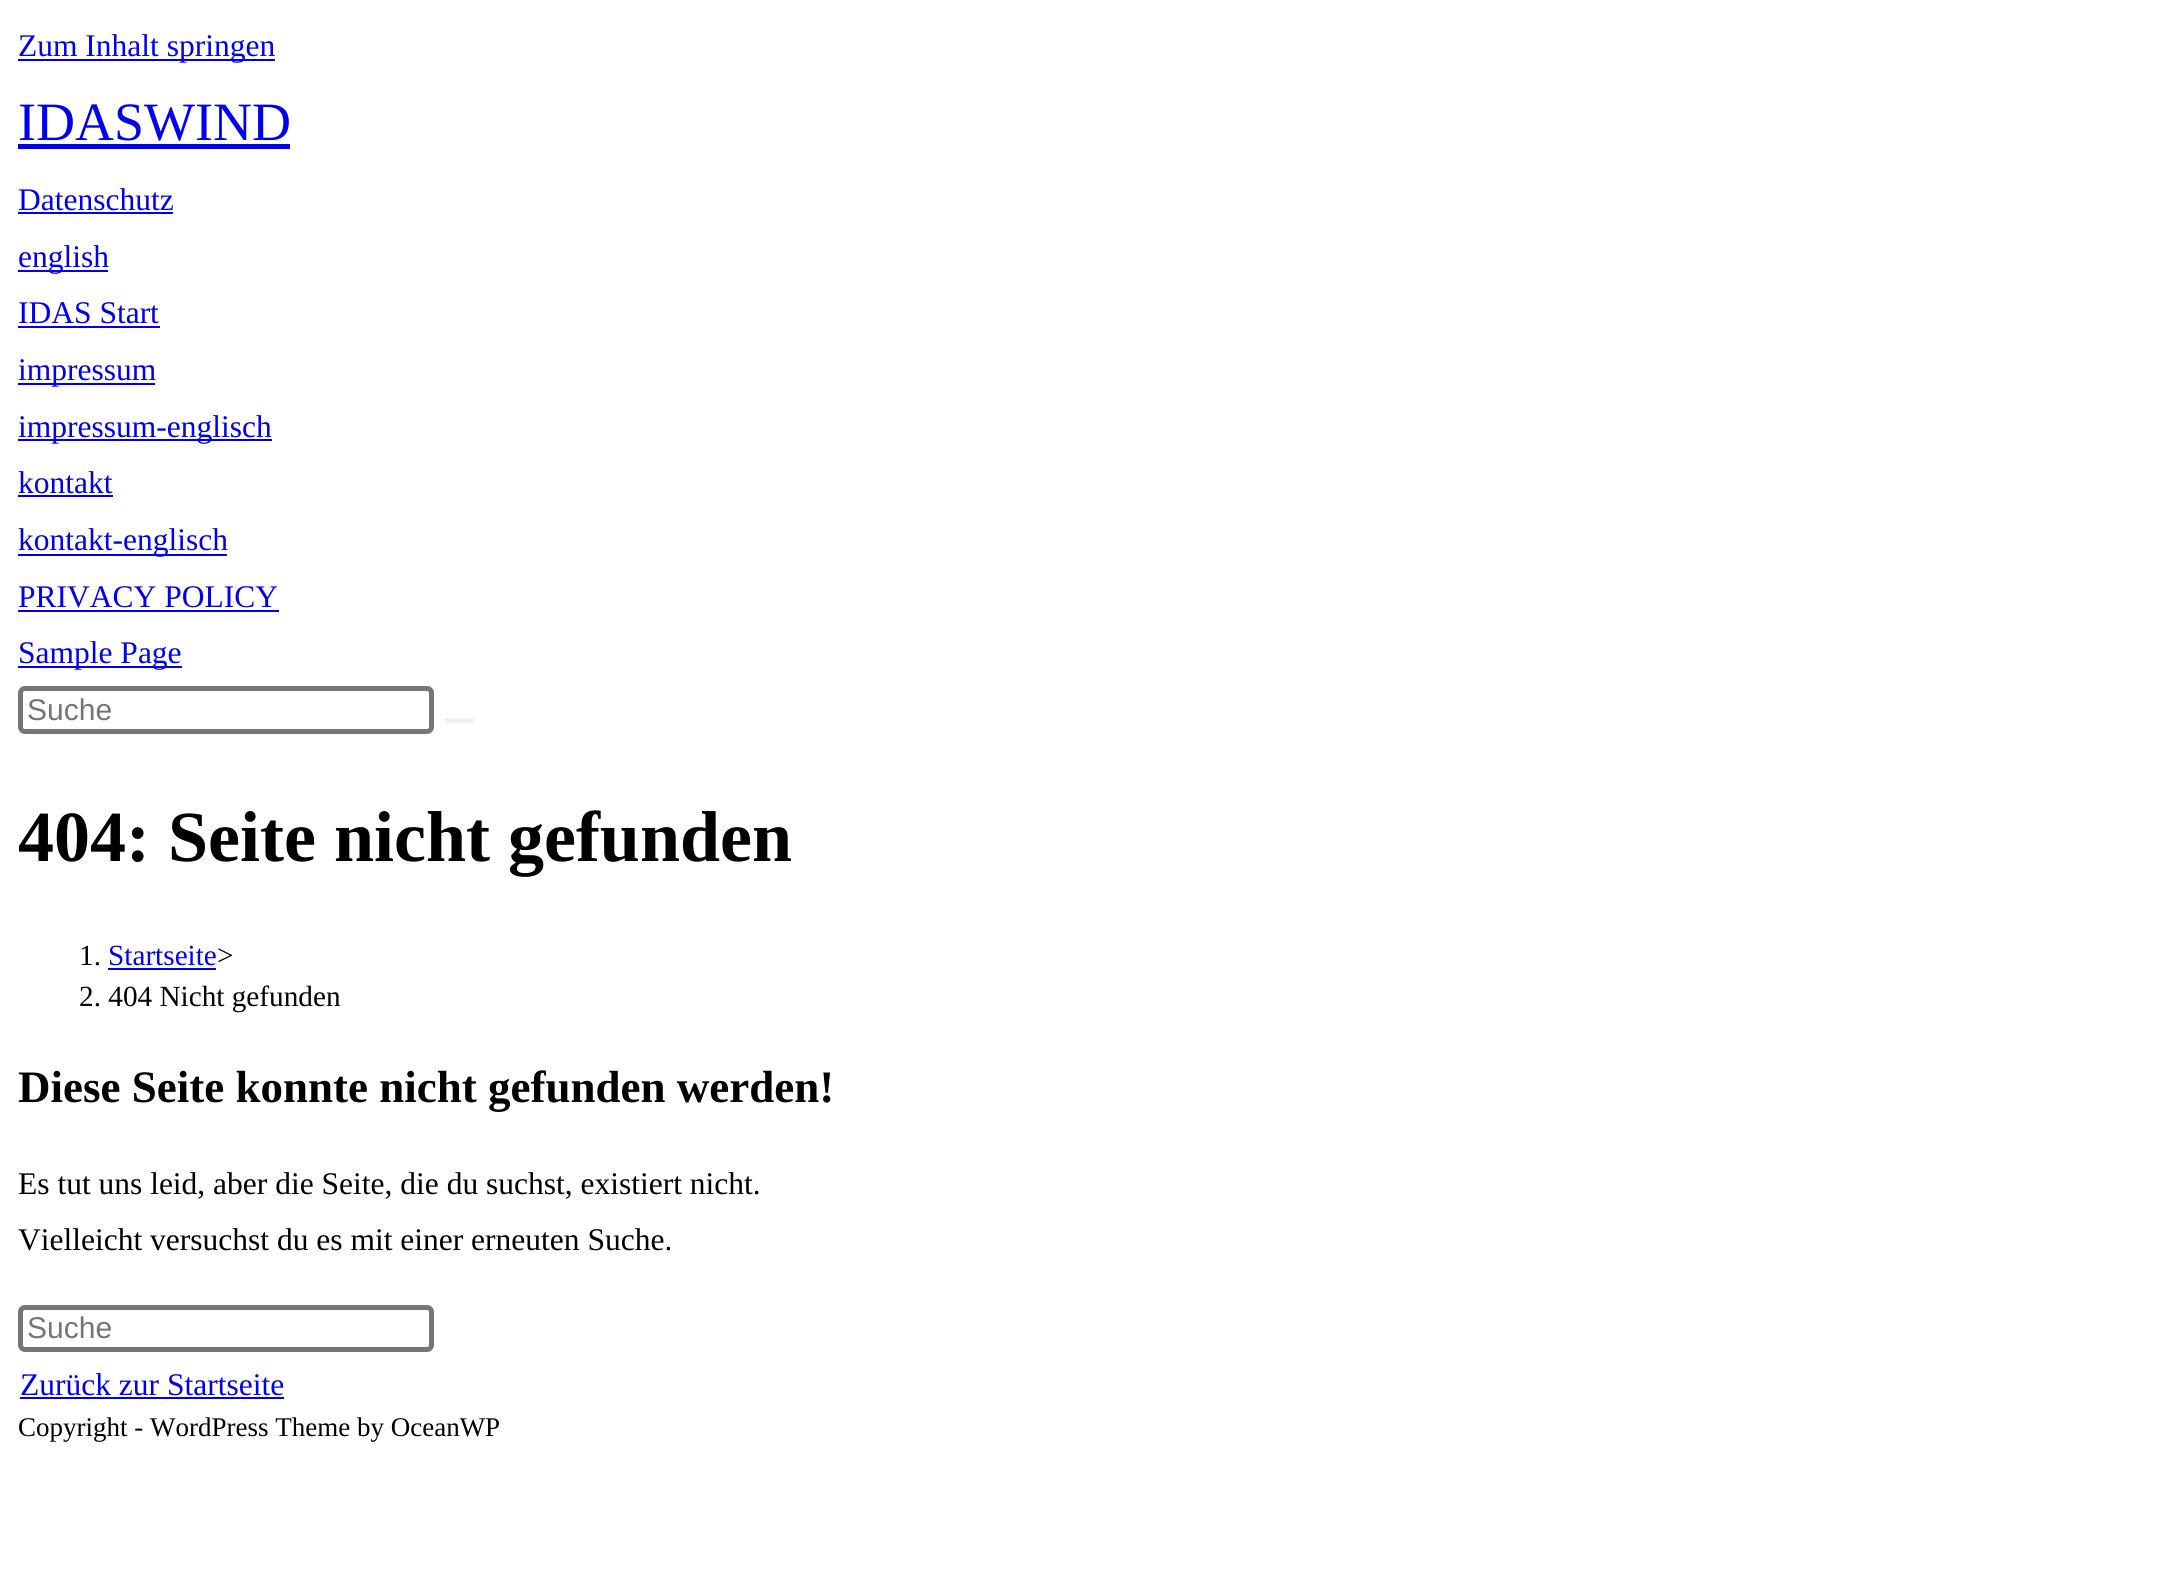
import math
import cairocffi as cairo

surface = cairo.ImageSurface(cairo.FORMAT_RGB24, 2173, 1577)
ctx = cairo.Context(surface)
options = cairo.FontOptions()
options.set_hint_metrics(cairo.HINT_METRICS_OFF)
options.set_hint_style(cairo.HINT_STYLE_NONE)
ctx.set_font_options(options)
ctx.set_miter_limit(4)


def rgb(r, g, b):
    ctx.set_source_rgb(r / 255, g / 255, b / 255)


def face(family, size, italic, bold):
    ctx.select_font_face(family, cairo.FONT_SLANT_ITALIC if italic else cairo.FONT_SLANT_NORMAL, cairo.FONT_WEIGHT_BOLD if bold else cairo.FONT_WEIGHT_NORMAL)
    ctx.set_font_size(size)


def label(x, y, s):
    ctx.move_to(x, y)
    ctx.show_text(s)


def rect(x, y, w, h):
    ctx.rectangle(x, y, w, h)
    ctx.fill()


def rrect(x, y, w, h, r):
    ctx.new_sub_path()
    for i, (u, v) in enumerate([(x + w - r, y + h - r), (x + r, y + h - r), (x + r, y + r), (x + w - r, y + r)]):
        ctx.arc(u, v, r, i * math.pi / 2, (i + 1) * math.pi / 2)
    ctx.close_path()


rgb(255, 255, 255)
ctx.paint()
rgb(0, 0, 238)
rect(18, 59, 257, 2)
face('Liberation Serif', 31.5, 0, 0)
label(18, 56, 'Zum Inhalt springen')
face('Liberation Serif', 54, 0, 0)
label(18, 140, 'IDASWIND')
rect(18, 144, 272, 5)
face('Liberation Serif', 31.5, 0, 0)
label(18, 210, 'Datenschutz')
rect(18, 212, 155, 2)
rect(18, 270, 90, 2)
label(18, 267, 'english')
label(18, 323, 'IDAS Start')
rect(18, 326, 142, 2)
rect(18, 383, 137, 2)
label(18, 380, 'impressum')
rect(18, 439, 254, 2)
label(18, 437, 'impressum-englisch')
label(18, 493, 'kontakt')
rect(18, 495, 95, 2)
rect(18, 554, 209, 2)
label(18, 550, 'kontakt-englisch')
label(18, 607, 'PRIVACY POLICY')
rect(18, 610, 261, 2)
rect(18, 666, 164, 2)
label(18, 663, 'Sample Page')
rrect(20.5, 688.5, 411, 43, 4.5)
rgb(118, 118, 118)
ctx.set_line_width(5)
ctx.stroke()
face('Liberation Sans', 30, 0, 0)
rgb(117, 117, 117)
label(27, 720, 'Suche')
rgb(239, 239, 239)
rect(445, 718, 28, 5)
face('Liberation Serif', 72, 0, 1)
rgb(0, 0, 0)
label(18, 861, '404: Seite nicht gefunden')
face('Liberation Serif', 29.25, 0, 0)
label(79, 965, '1.')
rgb(0, 0, 238)
label(108, 965, 'Startseite')
rect(108, 968, 108, 2)
rgb(0, 0, 0)
label(217, 965, '>')
label(79, 1006, '2. 404 Nicht gefunden')
face('Liberation Serif', 45, 0, 1)
label(18, 1102, 'Diese Seite konnte nicht gefunden werden!')
face('Liberation Serif', 31.5, 0, 0)
label(18, 1194, 'Es tut uns leid, aber die Seite, die du suchst, existiert nicht.')
label(18, 1250, 'Vielleicht versuchst du es mit einer erneuten Suche.')
rrect(20.5, 1307.5, 411, 42, 4.5)
rgb(118, 118, 118)
ctx.stroke()
face('Liberation Sans', 30, 0, 0)
rgb(117, 117, 117)
label(27, 1338, 'Suche')
face('Liberation Serif', 31.5, 0, 0)
rgb(0, 0, 238)
label(20, 1395, 'Zurück zur Startseite')
rect(20, 1397, 264, 2)
face('Liberation Serif', 27, 0, 0)
rgb(0, 0, 0)
label(18, 1436, 'Copyright - WordPress Theme by OceanWP')
surface.write_to_png('render.png')
